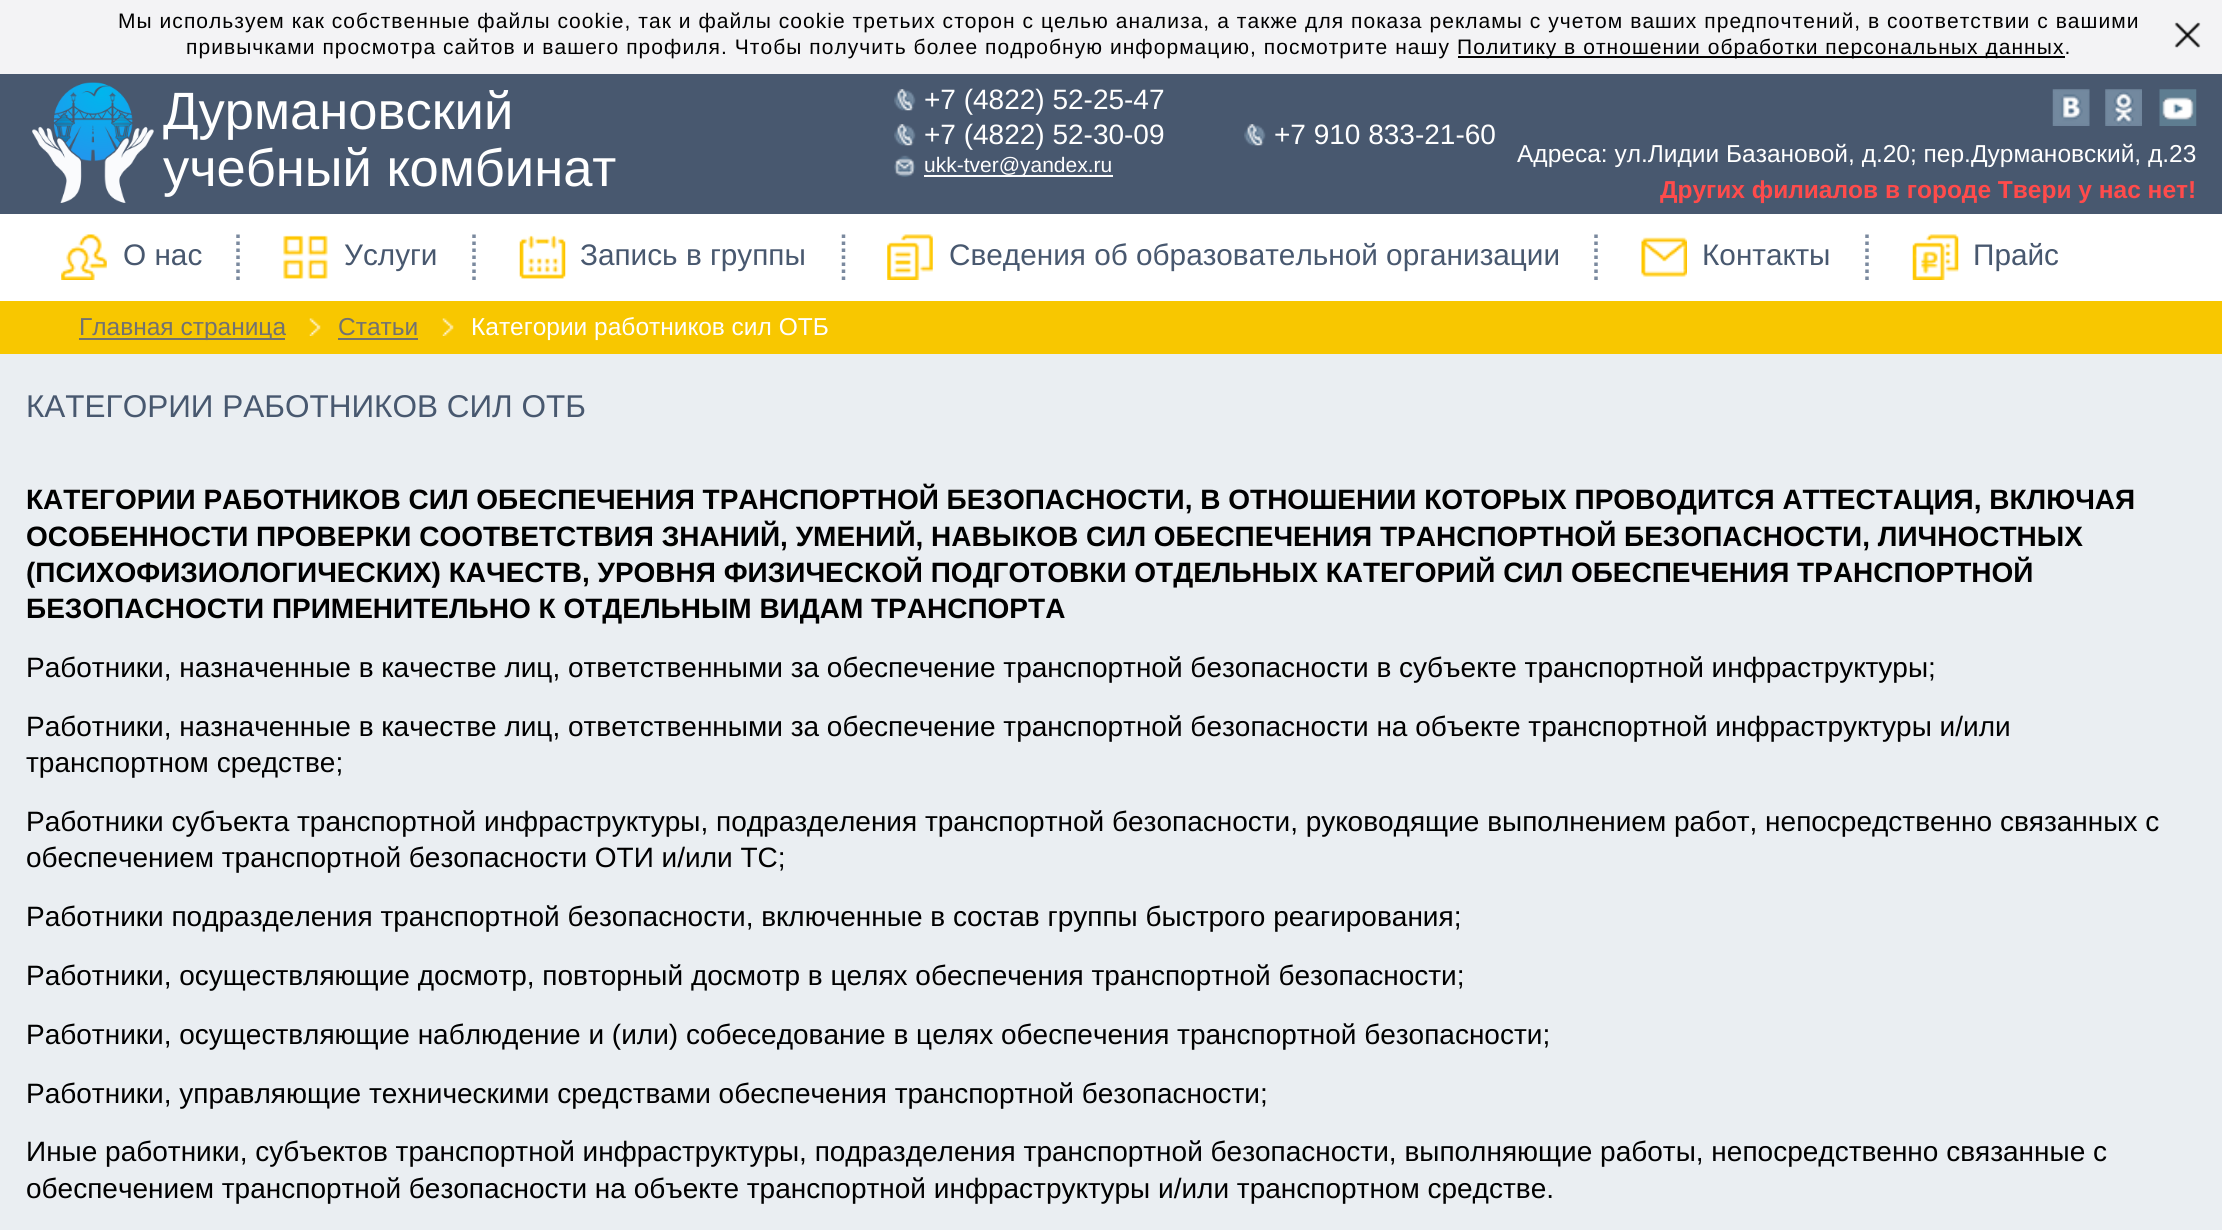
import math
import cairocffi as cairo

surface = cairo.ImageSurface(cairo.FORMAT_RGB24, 2222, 1230)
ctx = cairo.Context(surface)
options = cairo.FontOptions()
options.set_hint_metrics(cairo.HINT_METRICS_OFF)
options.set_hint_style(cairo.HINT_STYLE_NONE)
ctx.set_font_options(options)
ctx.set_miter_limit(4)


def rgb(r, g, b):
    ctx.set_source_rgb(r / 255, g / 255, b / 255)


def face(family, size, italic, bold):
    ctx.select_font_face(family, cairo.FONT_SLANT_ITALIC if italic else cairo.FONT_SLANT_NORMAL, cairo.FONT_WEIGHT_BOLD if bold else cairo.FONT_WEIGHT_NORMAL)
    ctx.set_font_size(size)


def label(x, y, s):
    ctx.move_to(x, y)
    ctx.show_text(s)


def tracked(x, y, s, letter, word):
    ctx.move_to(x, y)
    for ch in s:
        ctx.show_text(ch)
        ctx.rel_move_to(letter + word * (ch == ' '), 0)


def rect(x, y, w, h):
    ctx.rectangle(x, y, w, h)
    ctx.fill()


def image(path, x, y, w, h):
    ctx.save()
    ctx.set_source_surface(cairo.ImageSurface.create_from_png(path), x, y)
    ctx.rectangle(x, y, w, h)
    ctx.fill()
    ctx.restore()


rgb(234, 238, 242)
ctx.paint()
rgb(243, 243, 245)
rect(0, 0, 2222, 74)
face('Liberation Sans', 21, 0, 0)
rgb(0, 0, 0)
tracked(118, 28, 'Мы используем как собственные файлы cookie, так и файлы cookie третьих сторон с целью анализа, а также для показа рекламы с учетом ваших предпочтений, в соответствии с вашими', 1.05, 0)
tracked(186, 54, 'привычками просмотра сайтов и вашего профиля. Чтобы получить более подробную информацию, посмотрите нашу', 1.05, 0)
rect(1458, 56, 607, 2)
tracked(1457, 54, 'Политику в отношении обработки персональных данных.', 1.05, 0)
image('image0.png', 2174, 22, 27, 26)
rgb(72, 88, 111)
rect(0, 74, 2222, 140)
image('image1.png', 32, 82, 122, 121)
face('Liberation Sans', 52.5, 0, 0)
rgb(255, 255, 255)
label(163, 129, 'Дурмановский')
label(163, 186, 'учебный комбинат')
image('image2.png', 894, 89, 22, 22)
face('Liberation Sans', 28, 0, 0)
label(924, 109, '+7 (4822) 52-25-47')
image('image3.png', 2052, 89, 38, 37)
image('image4.png', 2105, 89, 37, 37)
image('image5.png', 2159, 89, 38, 37)
image('image2.png', 894, 124, 22, 22)
label(924, 144, '+7 (4822) 52-30-09')
image('image2.png', 1244, 124, 22, 22)
label(1274, 144, '+7 910 833-21-60')
image('image6.png', 894, 155, 22, 22)
rect(924, 175, 189, 2)
face('Liberation Sans', 21, 0, 0)
label(924, 172, 'ukk-tver@yandex.ru')
face('Liberation Sans', 24.5, 0, 0)
label(1517, 162, 'Адреса: ул.Лидии Базановой, д.20; пер.Дурмановский, д.23')
face('Liberation Sans', 24.5, 0, 1)
rgb(255, 75, 75)
label(1660, 198, 'Других филиалов в городе Твери у нас нет!')
rgb(255, 255, 255)
rect(0, 214, 2222, 87)
image('image7.png', 61, 234, 46, 46)
ctx.new_path()
ctx.move_to(238, 234.5)
ctx.line_to(238, 280)
rgb(122, 137, 158)
ctx.set_line_width(3.5)
ctx.set_dash([3.5, 3.5])
ctx.stroke()
face('Liberation Sans', 29.75, 0, 0)
rgb(72, 88, 111)
label(123, 265, 'О нас')
image('image8.png', 283, 235, 45, 44)
ctx.new_path()
ctx.move_to(474, 234.5)
ctx.line_to(474, 280)
rgb(122, 137, 158)
ctx.stroke()
rgb(72, 88, 111)
label(344, 265, 'Услуги')
image('image9.png', 519, 235, 47, 44)
ctx.new_path()
ctx.move_to(843.5, 234.5)
ctx.line_to(843.5, 280)
rgb(122, 137, 158)
ctx.stroke()
rgb(72, 88, 111)
label(580, 265, 'Запись в группы')
image('image10.png', 887, 234, 46, 46)
ctx.new_path()
ctx.move_to(1596, 234.5)
ctx.line_to(1596, 280)
rgb(122, 137, 158)
ctx.stroke()
rgb(72, 88, 111)
label(949, 265, 'Сведения об образовательной организации')
image('image11.png', 1641, 237, 46, 40)
ctx.new_path()
ctx.move_to(1867, 234.5)
ctx.line_to(1867, 280)
rgb(122, 137, 158)
ctx.stroke()
rgb(72, 88, 111)
label(1702, 265, 'Контакты')
image('image12.png', 1912, 234, 47, 46)
label(1973, 265, 'Прайс')
rgb(248, 199, 0)
rect(0, 301, 2222, 53)
rgb(114, 114, 113)
rect(79, 338, 206, 2)
face('Liberation Sans', 24.5, 0, 0)
label(79, 335, 'Главная страница')
image('image13.png', 309, 318, 12, 18)
label(338, 335, 'Статьи')
rect(338, 338, 80, 2)
image('image13.png', 442, 318, 12, 18)
rgb(255, 255, 255)
label(471, 335, 'Категории работников сил ОТБ')
face('Liberation Sans', 31.5, 0, 0)
rgb(72, 88, 111)
label(26, 417, 'КАТЕГОРИИ РАБОТНИКОВ СИЛ ОТБ')
face('Liberation Sans', 28, 0, 1)
rgb(0, 0, 0)
label(26, 509, 'КАТЕГОРИИ РАБОТНИКОВ СИЛ ОБЕСПЕЧЕНИЯ ТРАНСПОРТНОЙ БЕЗОПАСНОСТИ, В ОТНОШЕНИИ КОТОРЫХ ПРОВОДИТСЯ АТТЕСТАЦИЯ, ВКЛЮЧАЯ')
label(26, 546, 'ОСОБЕННОСТИ ПРОВЕРКИ СООТВЕТСТВИЯ ЗНАНИЙ, УМЕНИЙ, НАВЫКОВ СИЛ ОБЕСПЕЧЕНИЯ ТРАНСПОРТНОЙ БЕЗОПАСНОСТИ, ЛИЧНОСТНЫХ')
label(26, 582, '(ПСИХОФИЗИОЛОГИЧЕСКИХ) КАЧЕСТВ, УРОВНЯ ФИЗИЧЕСКОЙ ПОДГОТОВКИ ОТДЕЛЬНЫХ КАТЕГОРИЙ СИЛ ОБЕСПЕЧЕНИЯ ТРАНСПОРТНОЙ')
label(26, 618, 'БЕЗОПАСНОСТИ ПРИМЕНИТЕЛЬНО К ОТДЕЛЬНЫМ ВИДАМ ТРАНСПОРТА')
face('Liberation Sans', 28, 0, 0)
label(26, 677, 'Работники, назначенные в качестве лиц, ответственными за обеспечение транспортной безопасности в субъекте транспортной инфраструктуры;')
label(26, 736, 'Работники, назначенные в качестве лиц, ответственными за обеспечение транспортной безопасности на объекте транспортной инфраструктуры и/или')
label(26, 772, 'транспортном средстве;')
label(26, 831, 'Работники субъекта транспортной инфраструктуры, подразделения транспортной безопасности, руководящие выполнением работ, непосредственно связанных с')
label(26, 867, 'обеспечением транспортной безопасности ОТИ и/или ТС;')
label(26, 926, 'Работники подразделения транспортной безопасности, включенные в состав группы быстрого реагирования;')
label(26, 985, 'Работники, осуществляющие досмотр, повторный досмотр в целях обеспечения транспортной безопасности;')
label(26, 1044, 'Работники, осуществляющие наблюдение и (или) собеседование в целях обеспечения транспортной безопасности;')
label(26, 1103, 'Работники, управляющие техническими средствами обеспечения транспортной безопасности;')
label(26, 1161, 'Иные работники, субъектов транспортной инфраструктуры, подразделения транспортной безопасности, выполняющие работы, непосредственно связанные с')
label(26, 1198, 'обеспечением транспортной безопасности на объекте транспортной инфраструктуры и/или транспортном средстве.')
surface.write_to_png('render.png')
